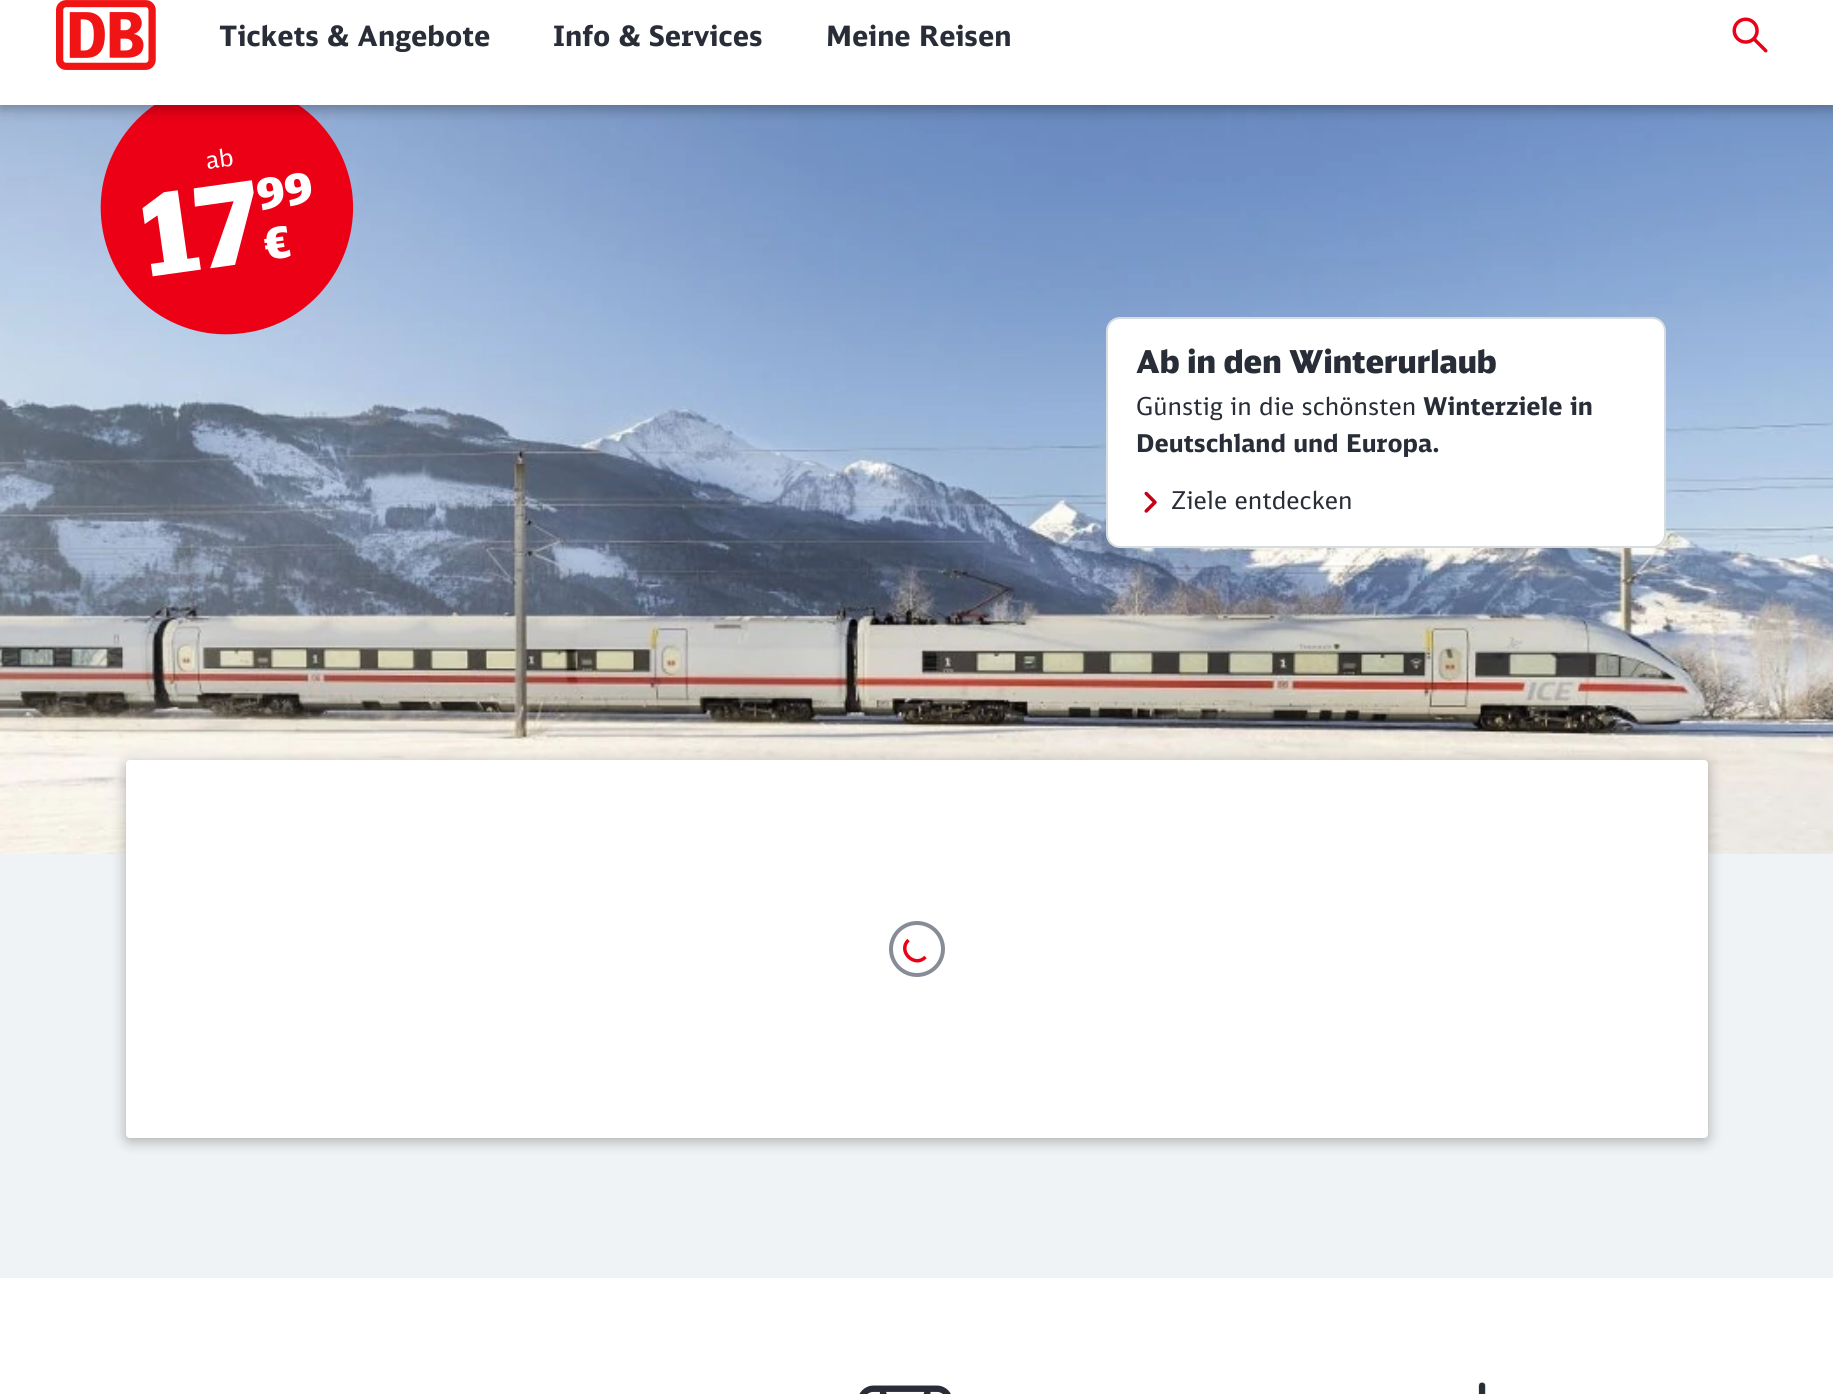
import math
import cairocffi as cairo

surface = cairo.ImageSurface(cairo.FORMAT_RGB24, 1833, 1394)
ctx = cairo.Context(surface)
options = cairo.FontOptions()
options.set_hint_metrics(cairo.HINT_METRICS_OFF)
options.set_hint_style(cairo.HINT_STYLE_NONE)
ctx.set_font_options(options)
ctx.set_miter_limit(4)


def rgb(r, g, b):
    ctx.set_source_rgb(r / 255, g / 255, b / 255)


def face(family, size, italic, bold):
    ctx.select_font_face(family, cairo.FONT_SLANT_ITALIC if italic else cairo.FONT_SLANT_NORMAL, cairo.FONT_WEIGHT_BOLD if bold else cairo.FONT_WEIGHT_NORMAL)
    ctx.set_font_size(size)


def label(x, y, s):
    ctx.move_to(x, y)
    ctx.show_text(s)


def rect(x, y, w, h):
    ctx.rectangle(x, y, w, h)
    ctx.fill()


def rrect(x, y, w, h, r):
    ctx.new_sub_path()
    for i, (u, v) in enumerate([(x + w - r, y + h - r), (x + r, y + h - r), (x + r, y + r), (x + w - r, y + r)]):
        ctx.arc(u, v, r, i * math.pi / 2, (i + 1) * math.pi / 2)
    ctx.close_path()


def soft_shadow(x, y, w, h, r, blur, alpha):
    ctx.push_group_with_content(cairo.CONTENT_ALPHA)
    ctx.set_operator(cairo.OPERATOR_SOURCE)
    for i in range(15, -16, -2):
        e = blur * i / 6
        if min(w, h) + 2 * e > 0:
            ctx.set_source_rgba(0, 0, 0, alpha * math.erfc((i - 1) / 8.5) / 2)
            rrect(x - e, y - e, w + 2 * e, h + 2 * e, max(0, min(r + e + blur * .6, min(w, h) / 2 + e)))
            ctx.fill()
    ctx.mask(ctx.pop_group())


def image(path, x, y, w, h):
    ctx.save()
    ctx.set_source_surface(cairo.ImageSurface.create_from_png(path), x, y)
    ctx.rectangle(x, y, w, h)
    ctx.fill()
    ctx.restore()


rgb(240, 243, 245)
ctx.paint()
image('image2.png', 0, 105, 1833, 749)
rgb(236, 0, 22)
ctx.new_path()
ctx.move_to(209, 84)
ctx.curve_to(278, 74, 342, 122, 352, 191)
ctx.curve_to(361, 260, 313, 324, 244, 333)
ctx.curve_to(175, 343, 112, 295, 102, 226)
ctx.curve_to(92, 157, 140, 93, 209, 84)
ctx.close_path()
ctx.fill()
rgb(0, 0, 0)
soft_shadow(0, -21, 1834, 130, 0, 7, 0.3)
rgb(255, 255, 255)
rect(0, 0, 1833, 105)
image('image0.png', 56, 0, 100, 70)
face('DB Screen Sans', 28, 0, 1)
rgb(40, 45, 55)
label(219, 46, 'Tickets & Angebote')
label(553, 46, 'Info & Services')
label(826, 46, 'Meine Reisen')
image('image1.png', 1732, 17, 36, 36)
face('DB Screen Sans', 24.5, 0, 0)
rgb(255, 255, 255)
ctx.save()
ctx.translate(207, 169)
ctx.rotate(-8 * math.pi / 180)
label(0, 0, 'ab')
ctx.restore()
face('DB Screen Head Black', 112, 0, 0)
ctx.save()
ctx.translate(148, 277)
ctx.rotate(-8 * math.pi / 180)
label(0, 0, '17')
ctx.restore()
face('DB Screen Head Black', 42, 0, 0)
ctx.save()
ctx.translate(259, 210)
ctx.rotate(-8 * math.pi / 180)
label(0, 0, '99')
ctx.restore()
ctx.save()
ctx.translate(266, 260)
ctx.rotate(-8 * math.pi / 180)
label(0, 0, '€')
ctx.restore()
rrect(1107, 318, 558, 229, 13)
ctx.fill_preserve()
rgb(215, 220, 225)
ctx.stroke()
face('DB Screen Head Black', 31.5, 0, 0)
rgb(40, 45, 55)
label(1136, 373, 'Ab in den Winterurlaub')
face('DB Screen Sans', 24.5, 0, 0)
label(1136, 415, 'Günstig in die schönsten')
face('DB Screen Sans', 24.5, 0, 1)
label(1423, 415, 'Winterziele in')
label(1136, 452, 'Deutschland und Europa.')
image('image3.png', 1144, 491, 13, 22)
face('DB Screen Sans', 24.5, 0, 0)
label(1171, 509, 'Ziele entdecken')
rgb(0, 0, 0)
soft_shadow(126, 763, 1582, 378, 4, 7, 0.3)
rgb(255, 255, 255)
rrect(126, 760, 1582, 378, 4)
ctx.fill()
ctx.arc(917, 949, 26, 0, 2 * math.pi)
rgb(135, 140, 150)
ctx.set_line_width(4)
ctx.stroke()
ctx.new_path()
ctx.move_to(925.5, 957)
ctx.curve_to(914.5, 968.5, 897, 951, 908.5, 940)
rgb(236, 0, 22)
ctx.set_line_width(3.5)
ctx.stroke()
rgb(255, 255, 255)
rect(0, 1278, 1833, 116)
image('image4.png', 859, 1385, 92, 9)
image('image5.png', 1478, 1382, 8, 12)
surface.write_to_png('render.png')
